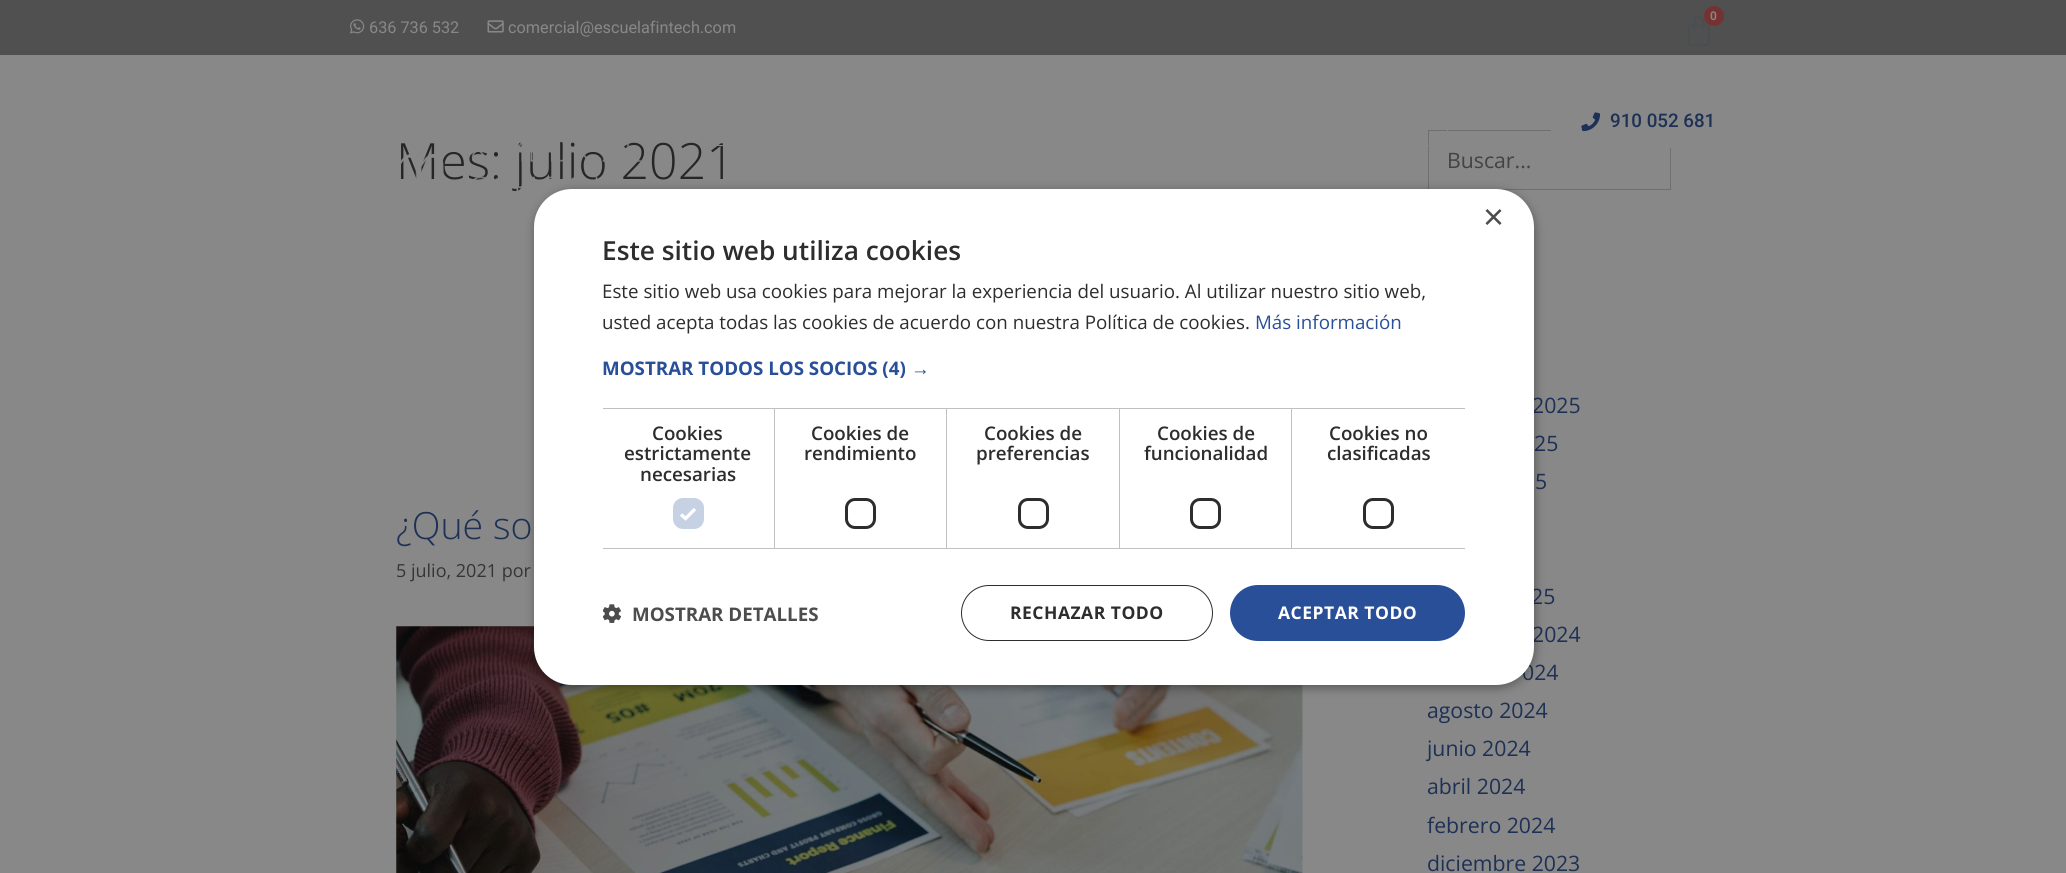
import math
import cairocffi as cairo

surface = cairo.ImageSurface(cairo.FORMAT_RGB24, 2066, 873)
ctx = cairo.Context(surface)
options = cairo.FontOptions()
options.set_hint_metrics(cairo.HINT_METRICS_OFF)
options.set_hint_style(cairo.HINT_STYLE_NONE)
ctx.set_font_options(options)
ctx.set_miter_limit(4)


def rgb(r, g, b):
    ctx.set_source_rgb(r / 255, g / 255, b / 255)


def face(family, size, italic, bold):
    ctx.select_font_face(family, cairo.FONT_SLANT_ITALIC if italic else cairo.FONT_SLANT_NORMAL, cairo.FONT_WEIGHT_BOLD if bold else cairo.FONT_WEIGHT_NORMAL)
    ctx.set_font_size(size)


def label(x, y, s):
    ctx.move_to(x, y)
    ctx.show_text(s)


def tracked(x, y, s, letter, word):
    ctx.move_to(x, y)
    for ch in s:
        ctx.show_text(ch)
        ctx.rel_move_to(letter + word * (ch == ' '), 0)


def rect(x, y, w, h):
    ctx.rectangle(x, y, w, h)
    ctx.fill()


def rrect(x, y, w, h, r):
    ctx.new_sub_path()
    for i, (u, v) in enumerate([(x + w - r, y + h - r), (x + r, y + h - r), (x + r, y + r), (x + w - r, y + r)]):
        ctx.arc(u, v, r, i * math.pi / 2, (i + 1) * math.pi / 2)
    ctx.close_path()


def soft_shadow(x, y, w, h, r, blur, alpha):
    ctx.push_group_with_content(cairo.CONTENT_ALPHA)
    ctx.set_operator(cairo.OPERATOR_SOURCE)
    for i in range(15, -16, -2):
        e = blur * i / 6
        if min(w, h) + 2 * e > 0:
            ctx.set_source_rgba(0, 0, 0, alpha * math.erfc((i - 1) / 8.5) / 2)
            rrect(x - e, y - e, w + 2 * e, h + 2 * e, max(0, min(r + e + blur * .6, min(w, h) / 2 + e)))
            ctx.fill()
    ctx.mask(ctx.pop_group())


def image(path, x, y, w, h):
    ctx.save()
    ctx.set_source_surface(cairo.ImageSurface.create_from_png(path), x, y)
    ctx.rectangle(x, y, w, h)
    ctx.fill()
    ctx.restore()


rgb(136, 136, 136)
ctx.paint()
rgb(80, 80, 80)
rect(0, 0, 2066, 55)
image('image0.png', 1688, 16, 22, 30)
rgb(117, 50, 48)
ctx.arc(1714, 16, 10, 0, 2 * math.pi)
ctx.fill()
face('Roboto SemiBold', 12, 0, 0)
rgb(136, 136, 136)
label(1710, 20, '0')
image('image1.png', 350, 19, 15, 15)
face('Roboto', 16.25, 0, 0)
label(369, 33, '636 736 532')
image('image2.png', 487, 20, 17, 13)
label(508, 33, 'comercial@escuelafintech.com')
face('Open Sans Light', 50, 0, 0)
rgb(38, 38, 38)
label(396, 179, 'Mes: julio 2021')
ctx.rectangle(1428.5, 130.5, 242, 59)
rgb(111, 111, 111)
ctx.set_line_width(1)
ctx.stroke()
ctx.rectangle(709.5, 98.5, 738, 47)
rgb(136, 136, 136)
ctx.stroke()
rect(1551, 130, 120, 18)
image('image3.png', 1581, 112, 19, 20)
face('Roboto Medium', 18.75, 0, 0)
rgb(29, 48, 85)
label(1610, 127, '910 052 681')
image('image4.png', 400, 141, 241, 50)
face('Open Sans Light', 37.5, 0, 0)
label(396, 539, '¿Qué so')
face('Open Sans', 18, 0, 0)
rgb(53, 53, 53)
label(396, 577, '5 julio, 2021 por')
image('image5.png', 396, 626, 907, 247)
face('Open Sans', 21.25, 0, 0)
rgb(67, 67, 67)
label(1447, 168, 'Buscar...')
rgb(29, 48, 85)
label(1532, 413, '2025')
label(1534, 451, '25')
label(1535, 489, '5')
label(1531, 604, '25')
label(1532, 642, '2024')
label(1522, 680, '024')
label(1427, 718, 'agosto 2024')
label(1427, 756, 'junio 2024')
label(1427, 794, 'abril 2024')
label(1427, 833, 'febrero 2024')
label(1427, 871, 'diciembre 2023')
rgb(0, 0, 0)
soft_shadow(535, 191, 1000, 497, 38, 5, 0.35)
rgb(255, 255, 255)
rrect(534, 189, 1000, 496, 38)
ctx.fill()
face('Liberation Sans', 36, 0, 0)
rgb(77, 77, 77)
label(1483, 229, '×')
face('Open Sans SemiBold', 26.25, 0, 0)
rgb(45, 45, 45)
label(602, 260, 'Este sitio web utiliza cookies')
face('Open Sans', 18.75, 0, 0)
label(602, 298, 'Este sitio web usa cookies para mejorar la experiencia del usuario. Al utilizar nuestro sitio web,')
label(602, 329, 'usted acepta todas las cookies de acuerdo con nuestra Política de cookies.')
rgb(41, 79, 153)
label(1255, 329, 'Más información')
face('Open Sans', 18.75, 0, 1)
label(602, 375, 'MOSTRAR TODOS LOS SOCIOS (4)')
face('Liberation Sans', 18.75, 0, 1)
label(911, 375, '→')
rgb(192, 192, 192)
rect(603, 408, 862, 1)
rect(774, 408, 1, 141)
rect(603, 548, 172, 1)
face('Open Sans SemiBold', 18.75, 0, 0)
rgb(45, 45, 45)
label(652, 440, 'Cookies')
label(624, 460, 'estrictamente')
label(640, 481, 'necesarias')
rgb(199, 209, 228)
rrect(673, 498, 31, 31, 10)
ctx.fill()
ctx.new_path()
ctx.move_to(681, 514.5)
ctx.line_to(685.5, 518.5)
ctx.line_to(695, 509)
rgb(255, 255, 255)
ctx.set_line_width(3.3)
ctx.stroke()
rgb(192, 192, 192)
rect(946, 408, 1, 141)
rect(775, 548, 173, 1)
rgb(45, 45, 45)
label(811, 440, 'Cookies de')
label(804, 460, 'rendimiento')
rrect(846.5, 499.5, 28, 28, 8.5)
ctx.set_line_width(3)
ctx.stroke()
rgb(192, 192, 192)
rect(1119, 408, 1, 141)
rect(948, 548, 172, 1)
rgb(45, 45, 45)
label(984, 440, 'Cookies de')
label(976, 460, 'preferencias')
rrect(1019.5, 499.5, 28, 28, 8.5)
ctx.stroke()
rgb(192, 192, 192)
rect(1291, 408, 1, 141)
rect(1120, 548, 345, 1)
rgb(45, 45, 45)
label(1157, 440, 'Cookies de')
label(1144, 460, 'funcionalidad')
rrect(1191.5, 499.5, 28, 28, 8.5)
ctx.stroke()
label(1329, 440, 'Cookies no')
label(1327, 460, 'clasificadas')
rrect(1364.5, 499.5, 28, 28, 8.5)
ctx.stroke()
image('image6.png', 603, 604, 18, 19)
face('Open Sans', 18.75, 0, 1)
rgb(77, 77, 77)
label(632, 621, 'MOSTRAR DETALLES')
rrect(961.5, 585.5, 251, 55, 27.5)
rgb(45, 45, 45)
ctx.set_line_width(1)
ctx.stroke()
face('Open Sans', 17.5, 0, 1)
tracked(1010, 619, 'RECHAZAR TODO', 0.5, 0)
rgb(41, 79, 153)
rrect(1230, 585, 235, 56, 28)
ctx.fill()
rgb(255, 255, 255)
tracked(1278, 619, 'ACEPTAR TODO', 0.5, 0)
surface.write_to_png('render.png')
